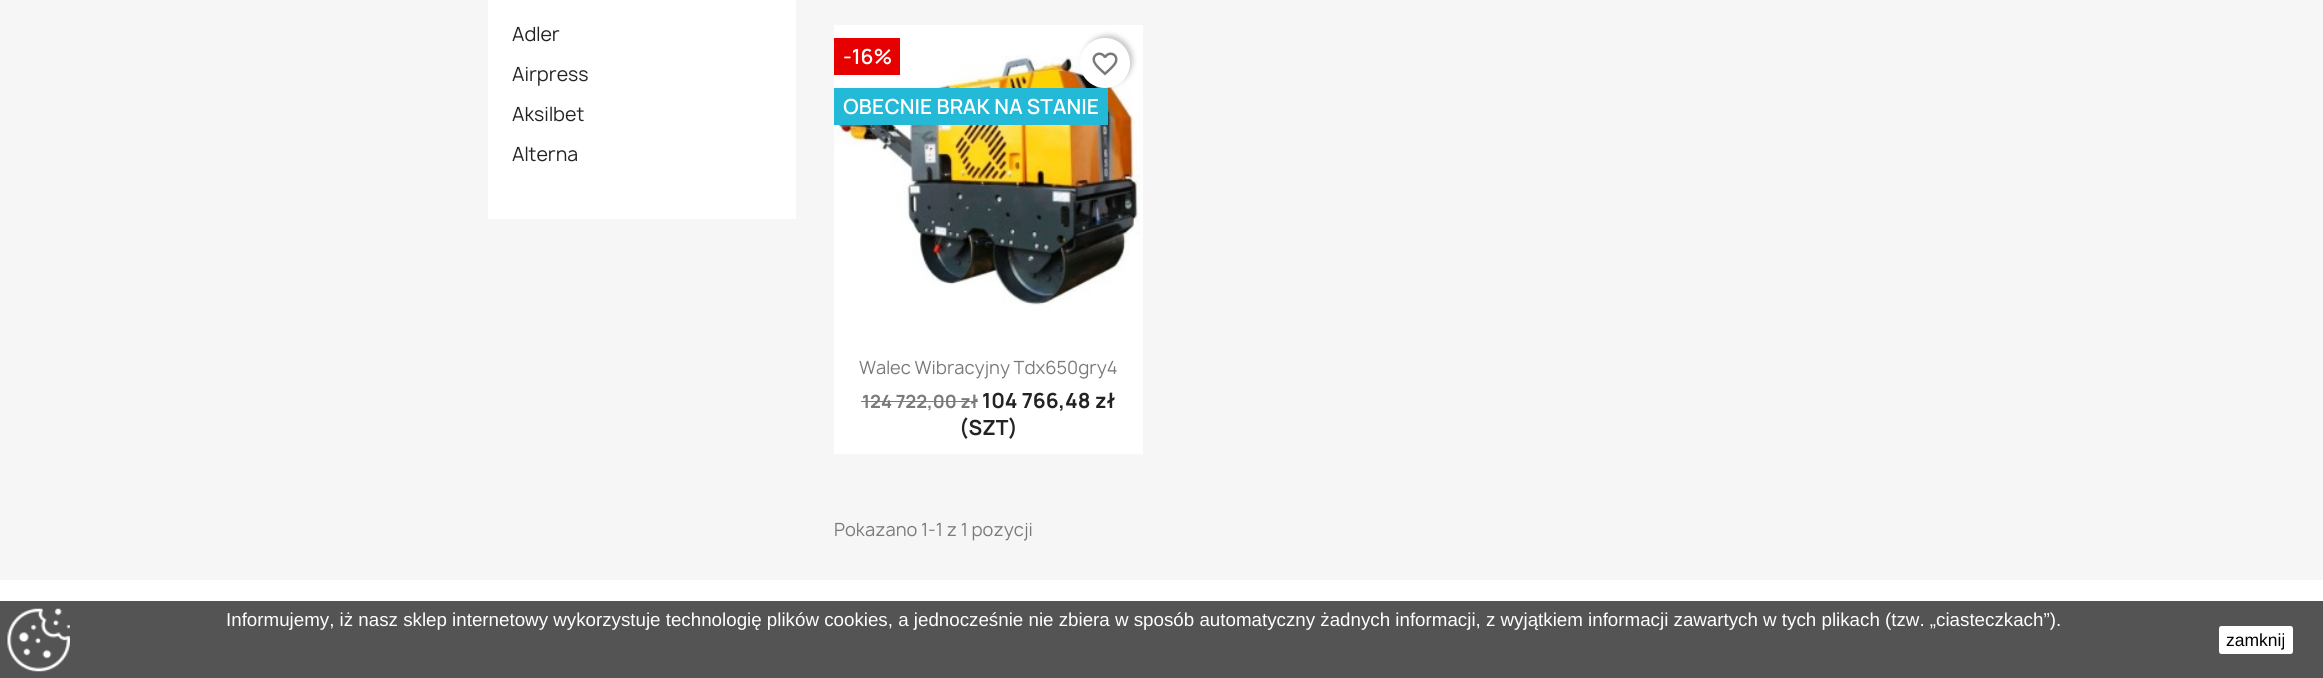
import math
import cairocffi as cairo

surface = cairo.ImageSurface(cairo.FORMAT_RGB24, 2323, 678)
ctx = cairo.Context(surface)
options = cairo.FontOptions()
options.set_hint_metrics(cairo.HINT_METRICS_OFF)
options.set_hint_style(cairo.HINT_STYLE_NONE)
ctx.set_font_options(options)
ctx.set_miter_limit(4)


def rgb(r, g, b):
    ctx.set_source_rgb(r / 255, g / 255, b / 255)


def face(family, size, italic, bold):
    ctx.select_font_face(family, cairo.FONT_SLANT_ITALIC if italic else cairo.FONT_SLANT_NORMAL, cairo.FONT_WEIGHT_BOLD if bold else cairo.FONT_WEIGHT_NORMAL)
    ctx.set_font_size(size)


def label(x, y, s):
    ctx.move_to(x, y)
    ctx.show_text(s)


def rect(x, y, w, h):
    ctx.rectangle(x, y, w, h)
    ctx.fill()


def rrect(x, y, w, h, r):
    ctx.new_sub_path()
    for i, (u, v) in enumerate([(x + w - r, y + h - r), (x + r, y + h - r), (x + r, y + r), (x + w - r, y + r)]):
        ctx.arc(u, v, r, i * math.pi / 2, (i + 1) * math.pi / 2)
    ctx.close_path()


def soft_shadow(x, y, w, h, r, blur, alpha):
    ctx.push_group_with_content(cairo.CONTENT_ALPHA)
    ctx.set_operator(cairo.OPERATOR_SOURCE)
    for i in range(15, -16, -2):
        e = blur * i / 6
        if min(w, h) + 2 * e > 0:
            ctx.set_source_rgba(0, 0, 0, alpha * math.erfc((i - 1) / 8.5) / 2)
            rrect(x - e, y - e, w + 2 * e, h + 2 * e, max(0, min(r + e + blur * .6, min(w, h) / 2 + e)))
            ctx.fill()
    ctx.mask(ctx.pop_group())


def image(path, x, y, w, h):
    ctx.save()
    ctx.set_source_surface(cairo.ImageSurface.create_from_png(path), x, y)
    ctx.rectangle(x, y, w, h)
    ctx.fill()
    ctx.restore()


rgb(255, 255, 255)
ctx.paint()
rgb(246, 246, 246)
rect(0, 0, 2323, 580)
rgb(255, 255, 255)
rect(488, 0, 308, 219)
face('Manrope', 18.75, 0, 0)
rgb(35, 35, 35)
label(512, 41, 'Adler')
label(512, 81, 'Airpress')
label(512, 121, 'Aksilbet')
label(512, 161, 'Alterna')
rgb(255, 255, 255)
rect(834, 25, 309, 429)
image('image1.png', 834, 55, 308, 255)
rgb(231, 0, 0)
rect(834, 38, 66, 37)
face('Manrope SemiBold', 20, 0, 0)
rgb(255, 255, 255)
label(843, 64, '-16%')
rgb(36, 185, 215)
rect(834, 88, 274, 37)
rgb(255, 255, 255)
label(843, 114, 'OBECNIE BRAK NA STANIE')
rgb(0, 0, 0)
soft_shadow(1083, 35, 50, 50, 25, 2.5, 0.2)
rgb(255, 255, 255)
ctx.arc(1105, 63, 25, 0, 2 * math.pi)
ctx.fill()
image('image0.png', 1092, 52, 26, 24)
face('Manrope', 17.5, 0, 0)
rgb(122, 122, 122)
label(859, 374, 'Walec Wibracyjny Tdx650gry4')
face('Manrope', 17.5, 0, 1)
label(862, 408, '124 722,00 zł')
rect(861, 401, 117, 1)
face('Manrope', 20, 0, 1)
rgb(35, 35, 35)
label(982, 408, '104 766,48 zł')
label(959, 435, '(SZT)')
face('Manrope', 17.5, 0, 0)
rgb(122, 122, 122)
label(834, 536, 'Pokazano 1-1 z 1 pozycji')
rgb(84, 84, 84)
rect(0, 601, 2323, 77)
image('image2.png', 7, 608, 63, 64)
face('Liberation Sans', 18.75, 0, 0)
rgb(255, 255, 255)
label(226, 626, 'Informujemy, iż nasz sklep internetowy wykorzystuje technologię plików cookies, a jednocześnie nie zbiera w sposób automatyczny żadnych informacji, z wyjątkiem informacji zawartych w tych plikach (tzw. „ciasteczkach”).')
rrect(2219, 626, 74, 28, 2.5)
ctx.fill()
face('Liberation Sans', 17.5, 0, 0)
rgb(0, 0, 0)
label(2226, 646, 'zamknij')
surface.write_to_png('render.png')
